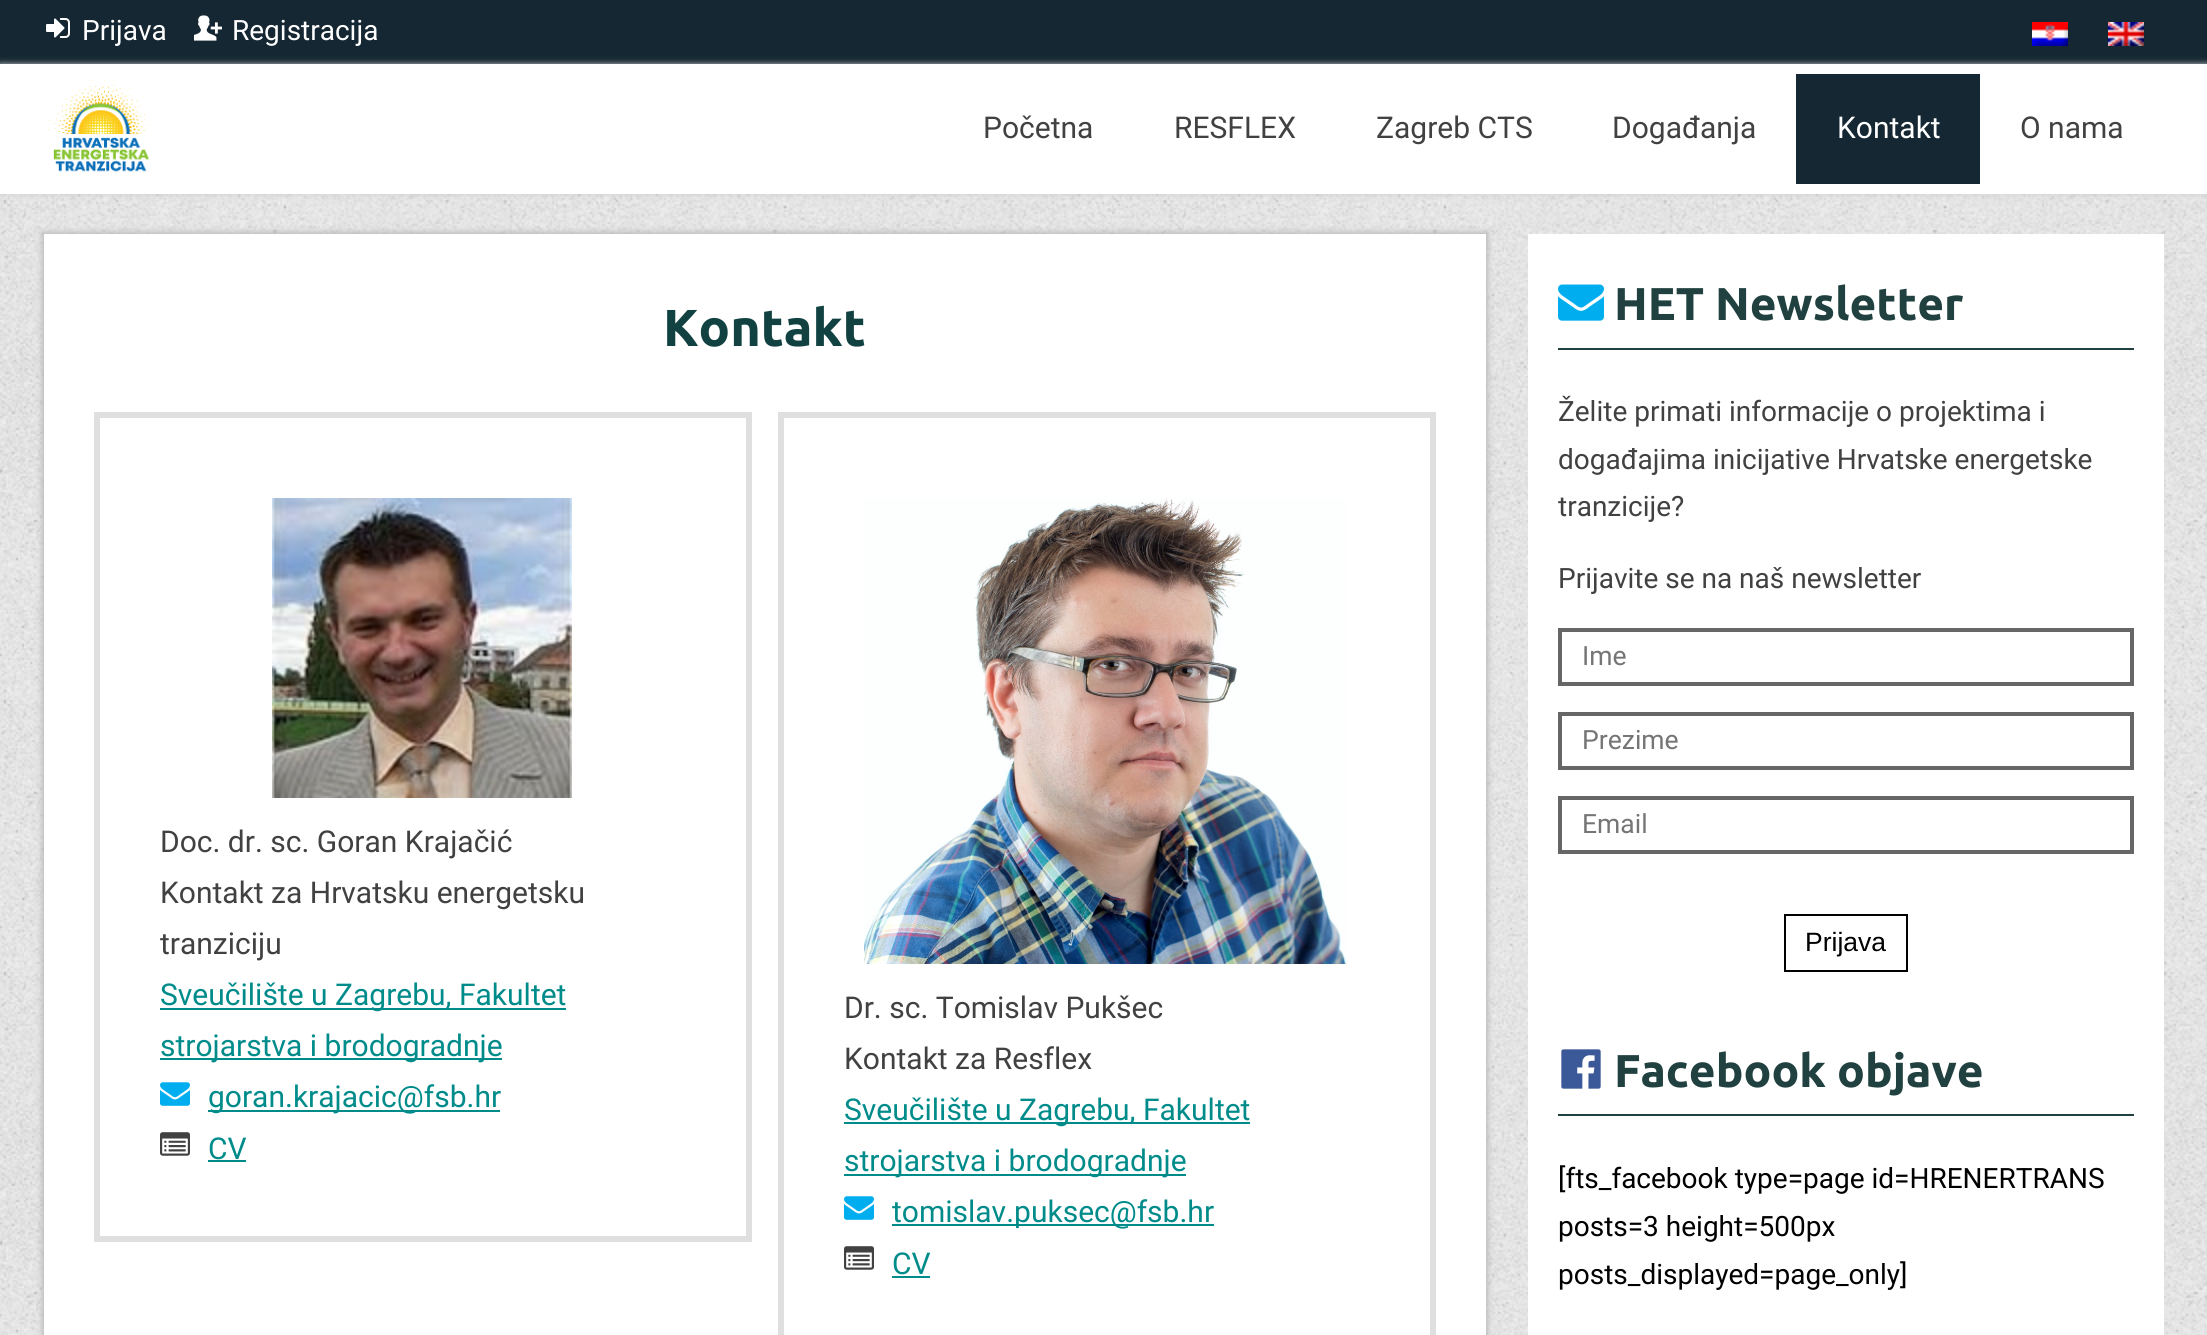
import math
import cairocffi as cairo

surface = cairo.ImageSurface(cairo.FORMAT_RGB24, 2207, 1335)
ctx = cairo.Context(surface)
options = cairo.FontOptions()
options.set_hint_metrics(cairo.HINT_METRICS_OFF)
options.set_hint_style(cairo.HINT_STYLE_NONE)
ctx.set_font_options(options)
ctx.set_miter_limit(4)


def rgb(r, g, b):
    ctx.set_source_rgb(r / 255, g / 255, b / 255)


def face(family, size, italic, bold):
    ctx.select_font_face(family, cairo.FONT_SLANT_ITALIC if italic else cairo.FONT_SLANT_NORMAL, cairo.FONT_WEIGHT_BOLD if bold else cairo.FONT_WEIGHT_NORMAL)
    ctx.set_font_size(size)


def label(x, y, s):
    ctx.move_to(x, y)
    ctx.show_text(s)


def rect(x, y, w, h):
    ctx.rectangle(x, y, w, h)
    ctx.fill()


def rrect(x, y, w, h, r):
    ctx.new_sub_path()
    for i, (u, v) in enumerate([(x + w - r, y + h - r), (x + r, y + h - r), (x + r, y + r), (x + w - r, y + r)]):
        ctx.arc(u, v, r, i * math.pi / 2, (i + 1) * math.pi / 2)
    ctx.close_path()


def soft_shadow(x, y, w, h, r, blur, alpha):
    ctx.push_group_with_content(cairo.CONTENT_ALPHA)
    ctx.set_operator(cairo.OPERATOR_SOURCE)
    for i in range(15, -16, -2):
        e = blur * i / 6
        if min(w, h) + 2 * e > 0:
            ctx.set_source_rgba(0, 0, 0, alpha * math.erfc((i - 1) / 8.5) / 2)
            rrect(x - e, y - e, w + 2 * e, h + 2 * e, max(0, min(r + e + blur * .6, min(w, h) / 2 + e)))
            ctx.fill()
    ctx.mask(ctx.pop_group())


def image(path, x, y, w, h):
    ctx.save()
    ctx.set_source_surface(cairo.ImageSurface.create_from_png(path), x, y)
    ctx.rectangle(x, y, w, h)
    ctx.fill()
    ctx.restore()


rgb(255, 255, 255)
ctx.paint()
image('image0.png', 0, 194, 2207, 1141)
rgb(21, 39, 50)
rect(0, 0, 2207, 64)
image('image1.png', 46, 18, 24, 20)
face('Roboto', 28, 0, 0)
rgb(255, 255, 255)
label(82, 40, 'Prijava')
image('image2.png', 194, 15, 28, 26)
label(232, 40, 'Registracija')
image('image3.png', 2032, 22, 36, 24)
image('image4.png', 2108, 22, 36, 24)
rgb(204, 204, 204)
soft_shadow(0, 64, 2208, 130, 0, 3, 1)
rgb(255, 255, 255)
rect(0, 64, 2207, 130)
image('image5.png', 48, 80, 102, 92)
face('Roboto', 30, 0, 0)
rgb(65, 65, 65)
label(983, 138, 'Početna')
label(1174, 138, 'RESFLEX')
label(1376, 138, 'Zagreb CTS')
label(1612, 138, 'Događanja')
rgb(21, 39, 50)
rect(1796, 74, 184, 110)
rgb(255, 255, 255)
label(1837, 138, 'Kontakt')
rgb(65, 65, 65)
label(2020, 138, 'O nama')
rgb(187, 187, 187)
soft_shadow(42, 232, 1446, 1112, 0, 3, 1)
rgb(255, 255, 255)
rect(44, 234, 1442, 1101)
face('Ubuntu', 52, 0, 1)
rgb(17, 65, 65)
label(663, 346, 'Kontakt')
ctx.rectangle(97, 415, 652, 824)
rgb(223, 223, 223)
ctx.set_line_width(6)
ctx.stroke()
image('image6.png', 272, 498, 300, 300)
face('Roboto', 30, 0, 0)
rgb(65, 65, 65)
label(160, 852, 'Doc. dr. sc. Goran Krajačić')
label(160, 903, 'Kontakt za Hrvatsku energetsku')
label(160, 954, 'tranziciju')
rgb(0, 139, 139)
rect(160, 1008, 406, 2)
label(160, 1005, 'Sveučilište u Zagrebu, Fakultet')
rect(160, 1058, 342, 2)
label(160, 1056, 'strojarstva i brodogradnje')
image('image7.png', 160, 1082, 30, 24)
rect(208, 1110, 292, 2)
label(208, 1107, 'goran.krajacic@fsb.hr')
image('image8.png', 160, 1132, 30, 24)
label(208, 1159, 'CV')
rect(208, 1160, 38, 2)
ctx.rectangle(781, 415, 652, 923)
rgb(223, 223, 223)
ctx.stroke()
image('image9.png', 864, 498, 483, 466)
rgb(65, 65, 65)
label(844, 1018, 'Dr. sc. Tomislav Pukšec')
label(844, 1069, 'Kontakt za Resflex')
rgb(0, 139, 139)
rect(844, 1122, 406, 2)
label(844, 1120, 'Sveučilište u Zagrebu, Fakultet')
rect(844, 1174, 342, 2)
label(844, 1171, 'strojarstva i brodogradnje')
image('image7.png', 844, 1196, 30, 24)
rect(892, 1224, 322, 2)
label(892, 1222, 'tomislav.puksec@fsb.hr')
image('image8.png', 844, 1246, 30, 24)
label(892, 1274, 'CV')
rect(892, 1276, 38, 2)
rgb(255, 255, 255)
rect(1528, 234, 636, 1101)
rgb(33, 65, 65)
rect(1558, 348, 576, 2)
image('image10.png', 1558, 284, 46, 37)
face('Ubuntu', 46, 0, 1)
label(1614, 320, 'HET Newsletter')
face('Roboto', 28, 0, 0)
rgb(65, 65, 65)
label(1558, 421, 'Želite primati informacije o projektima i')
label(1558, 469, 'događajima inicijative Hrvatske energetske')
label(1558, 516, 'tranzicije?')
label(1558, 588, 'Prijavite se na naš newsletter')
ctx.rectangle(1560, 630, 572, 54)
rgb(102, 102, 102)
ctx.set_line_width(4)
ctx.stroke()
face('Roboto', 26.5, 0, 0)
rgb(117, 117, 117)
label(1582, 665, 'Ime')
ctx.rectangle(1560, 714, 572, 54)
rgb(102, 102, 102)
ctx.stroke()
rgb(117, 117, 117)
label(1582, 749, 'Prezime')
ctx.rectangle(1560, 798, 572, 54)
rgb(102, 102, 102)
ctx.stroke()
rgb(117, 117, 117)
label(1582, 833, 'Email')
ctx.rectangle(1785, 915, 122, 56)
rgb(0, 0, 0)
ctx.set_line_width(2)
ctx.stroke()
face('Liberation Sans', 26.5, 0, 0)
label(1805, 951, 'Prijava')
rgb(33, 65, 65)
rect(1558, 1114, 576, 2)
image('image11.png', 1561, 1049, 40, 40)
face('Ubuntu', 46, 0, 1)
label(1614, 1087, 'Facebook objave')
face('Roboto', 28, 0, 0)
rgb(0, 0, 0)
label(1558, 1188, '[fts_facebook type=page id=HRENERTRANS')
label(1558, 1236, 'posts=3 height=500px')
label(1558, 1284, 'posts_displayed=page_only]')
surface.write_to_png('render.png')
